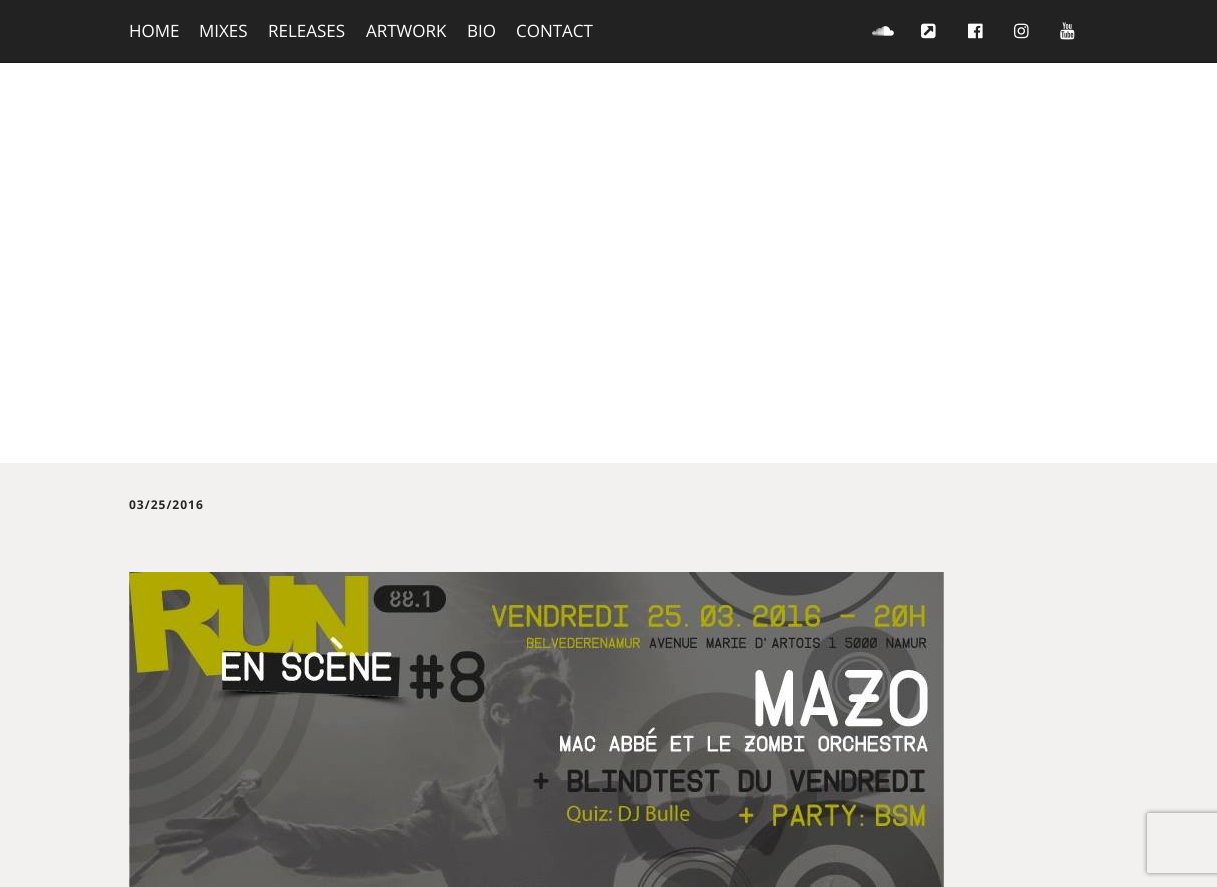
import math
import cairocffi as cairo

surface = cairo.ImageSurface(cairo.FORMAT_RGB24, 1217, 887)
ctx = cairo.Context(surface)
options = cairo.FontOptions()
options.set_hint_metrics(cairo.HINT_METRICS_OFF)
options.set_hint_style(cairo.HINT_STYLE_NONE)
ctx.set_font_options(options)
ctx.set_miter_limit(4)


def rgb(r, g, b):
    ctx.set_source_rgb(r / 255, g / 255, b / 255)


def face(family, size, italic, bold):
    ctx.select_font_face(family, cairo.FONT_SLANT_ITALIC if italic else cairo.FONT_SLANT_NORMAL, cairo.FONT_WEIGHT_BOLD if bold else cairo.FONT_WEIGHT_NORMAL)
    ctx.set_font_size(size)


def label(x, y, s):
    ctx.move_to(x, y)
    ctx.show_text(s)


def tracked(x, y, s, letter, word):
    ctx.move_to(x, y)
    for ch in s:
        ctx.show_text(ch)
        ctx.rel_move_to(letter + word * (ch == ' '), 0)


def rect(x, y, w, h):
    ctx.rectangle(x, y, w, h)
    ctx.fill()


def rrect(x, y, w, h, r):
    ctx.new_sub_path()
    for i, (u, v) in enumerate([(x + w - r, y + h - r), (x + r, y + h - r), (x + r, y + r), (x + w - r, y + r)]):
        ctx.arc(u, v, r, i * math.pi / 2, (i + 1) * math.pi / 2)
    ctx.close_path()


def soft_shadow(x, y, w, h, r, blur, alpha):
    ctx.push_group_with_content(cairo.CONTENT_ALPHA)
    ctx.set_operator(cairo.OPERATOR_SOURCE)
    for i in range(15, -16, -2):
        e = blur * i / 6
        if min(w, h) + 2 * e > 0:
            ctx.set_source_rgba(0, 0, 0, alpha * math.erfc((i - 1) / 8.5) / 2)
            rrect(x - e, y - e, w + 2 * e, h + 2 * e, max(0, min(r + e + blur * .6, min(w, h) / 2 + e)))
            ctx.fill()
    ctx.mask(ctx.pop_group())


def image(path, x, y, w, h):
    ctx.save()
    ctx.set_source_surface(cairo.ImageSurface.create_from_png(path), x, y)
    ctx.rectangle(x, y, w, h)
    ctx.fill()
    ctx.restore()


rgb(34, 34, 34)
ctx.paint()
rgb(23, 23, 23)
rect(0, 62, 1217, 1)
face('Open Sans', 17, 0, 0)
rgb(255, 255, 255)
label(129, 37, 'HOME')
label(199, 37, 'MIXES')
label(268, 37, 'RELEASES')
label(366, 37, 'ARTWORK')
label(467, 37, 'BIO')
label(516, 37, 'CONTACT')
image('image0.png', 872, 26, 22, 10)
image('image1.png', 921, 23, 15, 16)
image('image2.png', 968, 23, 15, 16)
image('image3.png', 1014, 23, 15, 16)
image('image4.png', 1060, 22, 15, 18)
rect(0, 63, 1217, 400)
rgb(243, 241, 239)
rect(0, 463, 1217, 424)
face('Open Sans', 12, 0, 1)
rgb(38, 38, 38)
tracked(129, 509, '03/25/2016', 1, 0)
image('image5.png', 129, 572, 815, 315)
ctx.save()
ctx.set_fill_rule(cairo.FILL_RULE_EVEN_ODD)
ctx.new_path()
ctx.move_to(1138, 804)
ctx.line_to(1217, 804)
ctx.line_to(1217, 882)
ctx.line_to(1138, 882)
ctx.close_path()
ctx.move_to(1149, 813)
ctx.line_to(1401, 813)
ctx.curve_to(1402, 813, 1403, 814, 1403, 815)
ctx.line_to(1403, 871)
ctx.curve_to(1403, 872, 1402, 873, 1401, 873)
ctx.line_to(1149, 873)
ctx.curve_to(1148, 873, 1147, 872, 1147, 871)
ctx.line_to(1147, 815)
ctx.curve_to(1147, 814, 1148, 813, 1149, 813)
ctx.close_path()
ctx.clip()
rgb(128, 128, 128)
soft_shadow(1147, 813, 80, 60, 2, 2.5, 1)
ctx.restore()
surface.write_to_png('render.png')
